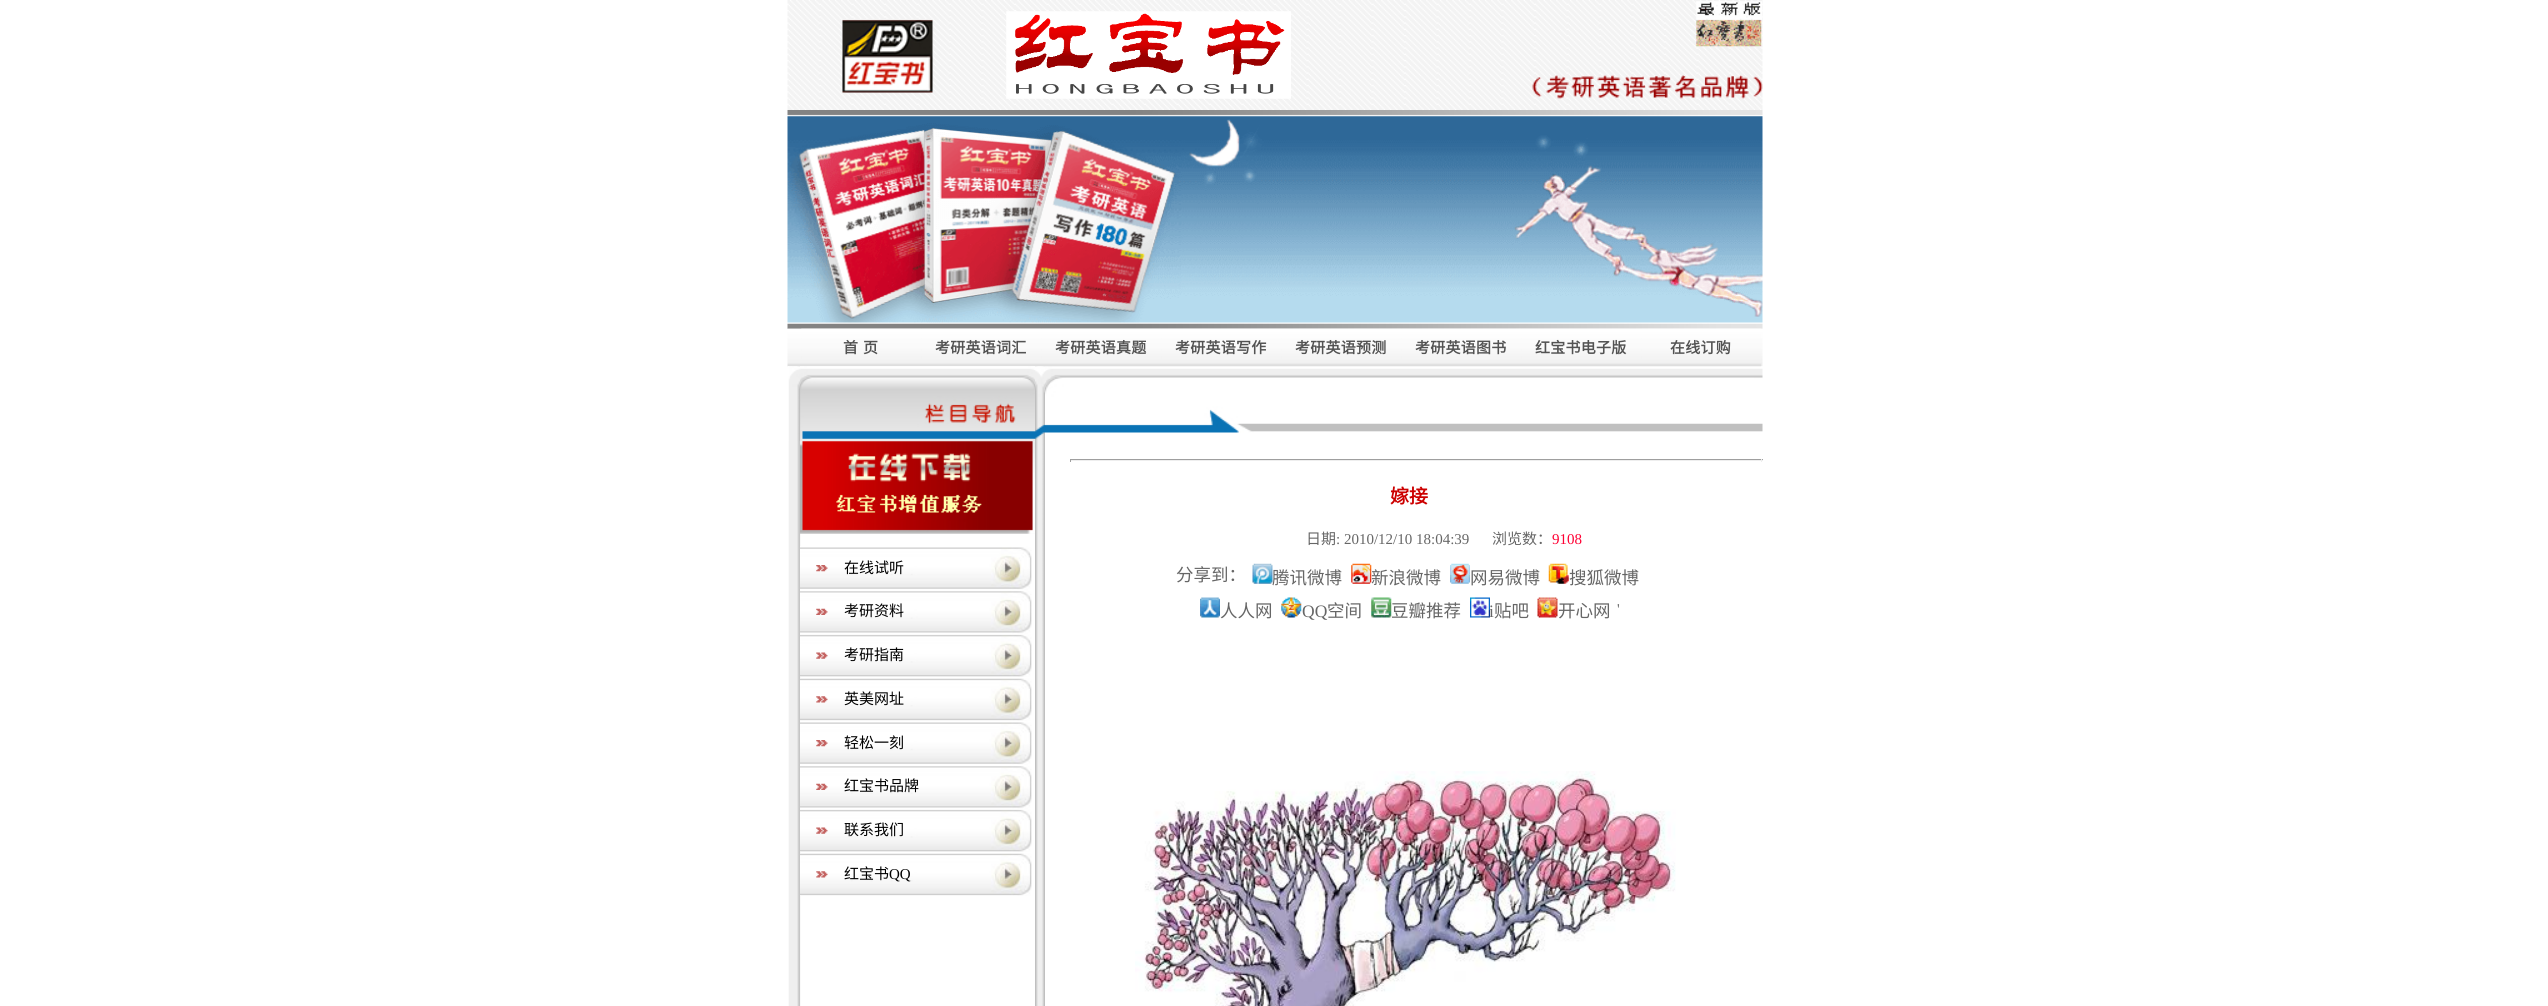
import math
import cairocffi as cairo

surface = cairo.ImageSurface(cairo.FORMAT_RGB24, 2548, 1006)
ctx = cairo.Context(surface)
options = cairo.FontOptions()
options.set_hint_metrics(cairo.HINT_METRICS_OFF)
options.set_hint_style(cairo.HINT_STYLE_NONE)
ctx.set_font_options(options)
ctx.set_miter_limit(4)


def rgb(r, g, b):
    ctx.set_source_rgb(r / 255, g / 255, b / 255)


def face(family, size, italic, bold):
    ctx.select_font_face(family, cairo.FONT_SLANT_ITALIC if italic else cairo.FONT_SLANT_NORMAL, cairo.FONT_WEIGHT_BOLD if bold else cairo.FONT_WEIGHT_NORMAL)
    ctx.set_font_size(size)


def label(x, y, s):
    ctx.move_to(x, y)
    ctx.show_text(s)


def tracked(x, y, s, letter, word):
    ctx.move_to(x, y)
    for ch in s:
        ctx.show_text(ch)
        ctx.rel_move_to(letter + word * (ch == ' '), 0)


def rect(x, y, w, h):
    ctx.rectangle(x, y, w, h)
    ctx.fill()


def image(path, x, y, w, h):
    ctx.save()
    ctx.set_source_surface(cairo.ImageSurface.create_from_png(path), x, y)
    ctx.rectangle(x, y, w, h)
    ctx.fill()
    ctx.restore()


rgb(255, 255, 255)
ctx.paint()
image('image0.png', 787, 0, 976, 110)
image('image1.png', 842, 19, 91, 74)
image('image2.png', 1006, 11, 285, 88)
image('image3.png', 1696, 1, 66, 46)
image('image4.png', 1532, 75, 231, 24)
image('image5.png', 787, 110, 976, 6)
image('image6.png', 787, 116, 976, 207)
image('image7.png', 787, 323, 976, 6)
image('image8.png', 787, 328, 976, 39)
image('image17.png', 788, 366, 247, 640)
image('image9.png', 801, 328, 121, 39)
face('Noto Sans CJK SC', 15, 0, 1)
rgb(83, 83, 83)
tracked(843, 353, '首', 0.25, 0)
tracked(863, 353, '页', 0.25, 0)
image('image29.png', 1035, 366, 10, 640)
image('image10.png', 921, 328, 121, 39)
tracked(935, 353, '考研英语词汇', 0.25, 0)
image('image31.png', 1045, 366, 718, 67)
image('image11.png', 1041, 328, 121, 39)
tracked(1055, 353, '考研英语真题', 0.25, 0)
image('image12.png', 1161, 328, 121, 39)
tracked(1175, 353, '考研英语写作', 0.25, 0)
image('image13.png', 1281, 328, 121, 39)
tracked(1295, 353, '考研英语预测', 0.25, 0)
image('image14.png', 1401, 328, 121, 39)
tracked(1415, 353, '考研英语图书', 0.25, 0)
image('image15.png', 1521, 328, 121, 39)
tracked(1535, 353, '红宝书电子版', 0.25, 0)
image('image16.png', 1641, 328, 121, 39)
tracked(1670, 353, '在线订购', 0.25, 0)
image('image18.png', 788, 366, 247, 75)
image('image19.png', 800, 441, 235, 93)
image('image20.png', 800, 441, 235, 93)
image('image21.png', 800, 546, 232, 44)
image('image22.png', 816, 565, 12, 7)
face('Noto Sans CJK SC', 15, 0, 0)
rgb(0, 0, 0)
label(844, 573, '在线试听')
image('image23.png', 800, 590, 232, 44)
image('image24.png', 816, 608, 12, 7)
label(844, 616, '考研资料')
image('image25.png', 800, 634, 232, 43)
image('image26.png', 816, 652, 12, 7)
label(844, 660, '考研指南')
image('image27.png', 800, 678, 232, 43)
image('image28.png', 816, 696, 12, 7)
label(844, 704, '英美网址')
image('image21.png', 800, 721, 232, 44)
image('image22.png', 816, 740, 12, 7)
label(844, 748, '轻松一刻')
image('image23.png', 800, 765, 232, 44)
image('image24.png', 816, 783, 12, 7)
label(844, 791, '红宝书品牌')
image('image25.png', 800, 809, 232, 43)
image('image26.png', 816, 827, 12, 7)
label(844, 835, '联系我们')
image('image27.png', 800, 853, 232, 43)
image('image28.png', 816, 871, 12, 7)
label(844, 879, '红宝书')
face('Liberation Serif', 15, 0, 0)
label(889, 879, 'QQ')
image('image30.png', 1035, 366, 10, 73)
rgb(159, 159, 159)
rect(1070, 459, 693, 1)
rgb(238, 238, 238)
rect(1761, 459, 1, 3)
rect(1070, 460, 693, 1)
rgb(159, 159, 159)
rect(1070, 459, 1, 3)
face('Noto Sans CJK SC', 19, 0, 1)
rgb(204, 0, 0)
label(1390, 503, '嫁接')
face('Noto Sans CJK SC', 15, 0, 0)
rgb(102, 102, 102)
label(1306, 544, '日期')
face('Liberation Serif', 15, 0, 0)
label(1336, 544, ': 2010/12/10 18:04:39')
face('Noto Sans CJK SC', 15, 0, 0)
label(1492, 544, '浏览数：')
face('Liberation Serif', 15, 0, 0)
rgb(255, 0, 51)
label(1552, 544, '9108')
face('Noto Sans CJK SC', 17.5, 0, 0)
rgb(102, 102, 102)
label(1176, 581, '分享到：')
image('image32.png', 1252, 563, 21, 21)
label(1272, 584, '腾讯微博')
image('image33.png', 1351, 563, 21, 21)
label(1371, 584, '新浪微博')
image('image34.png', 1450, 563, 20, 21)
label(1470, 584, '网易微博')
image('image35.png', 1548, 563, 21, 21)
label(1569, 584, '搜狐微博')
image('image36.png', 1200, 597, 20, 21)
label(1220, 617, '人人网')
image('image37.png', 1281, 597, 21, 21)
face('Liberation Serif', 17.5, 0, 0)
label(1302, 617, 'QQ')
face('Noto Sans CJK SC', 17.5, 0, 0)
label(1327, 617, '空间')
image('image38.png', 1371, 597, 21, 21)
label(1391, 617, '豆瓣推荐')
image('image39.png', 1470, 597, 20, 21)
face('Liberation Serif', 17.5, 0, 0)
label(1489, 617, 'i')
face('Noto Sans CJK SC', 17.5, 0, 0)
label(1494, 617, '贴吧')
image('image40.png', 1537, 597, 21, 21)
label(1558, 617, '开心网')
face('Liberation Serif', 15, 0, 0)
label(1617, 614, '\'')
image('image41.png', 1135, 771, 541, 235)
surface.write_to_png('render.png')
